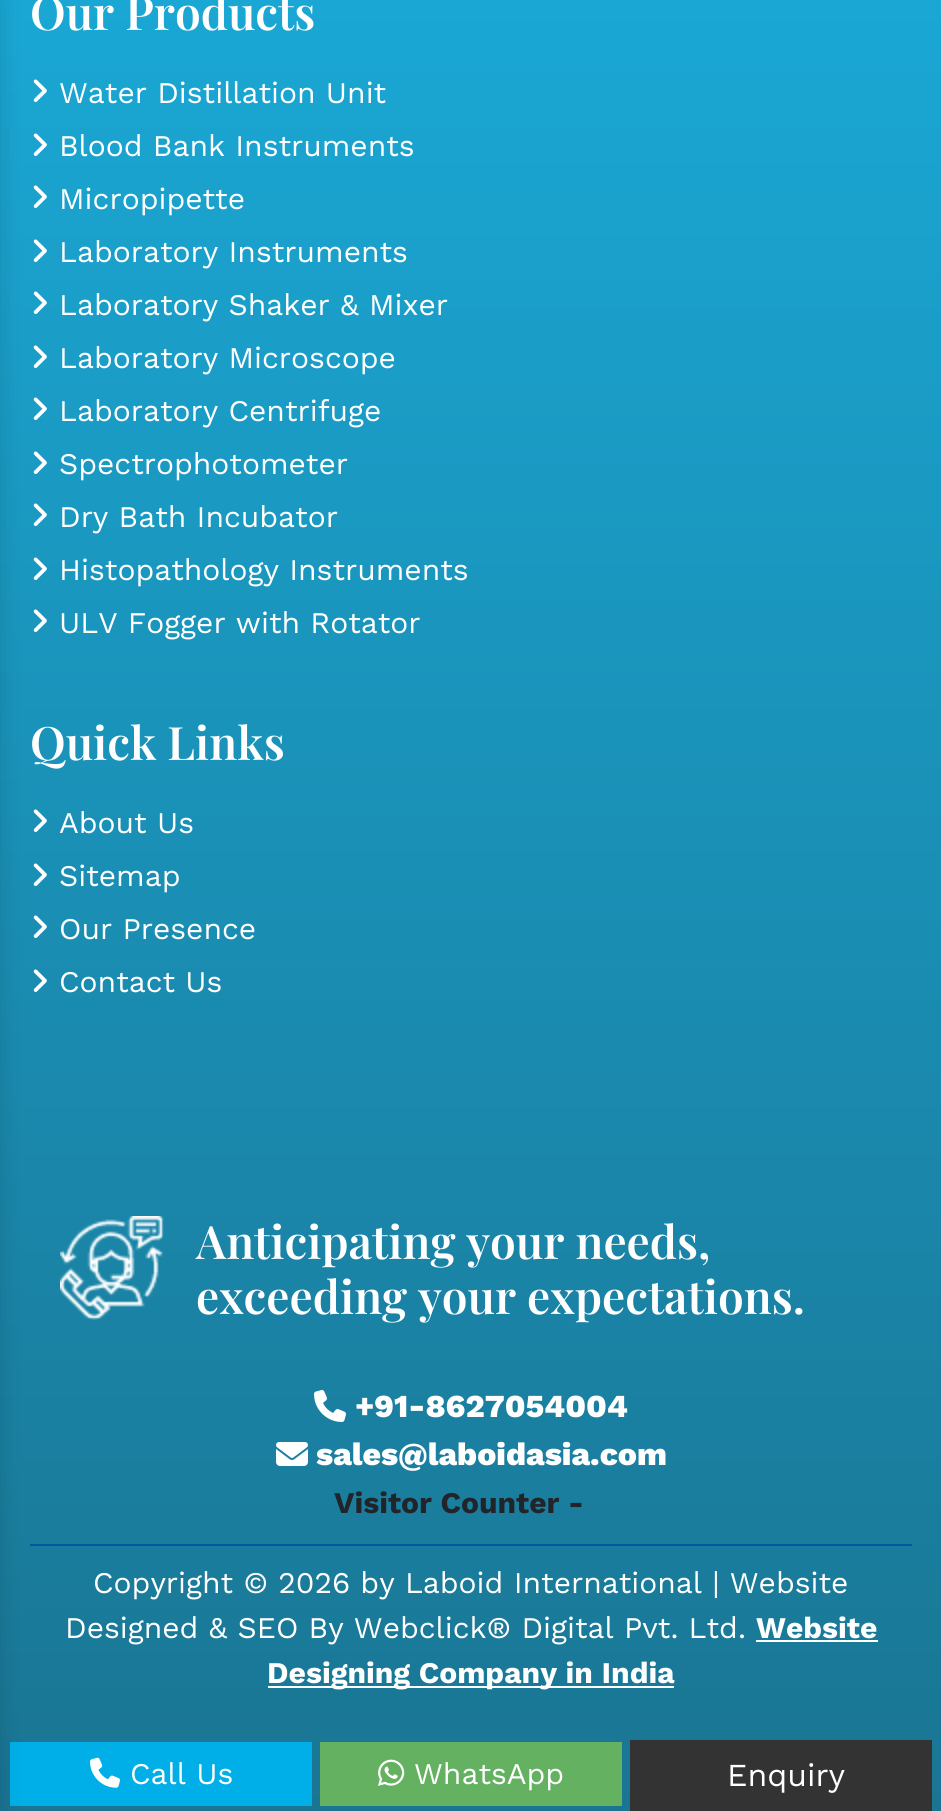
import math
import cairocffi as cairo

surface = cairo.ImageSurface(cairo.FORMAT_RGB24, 941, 1811)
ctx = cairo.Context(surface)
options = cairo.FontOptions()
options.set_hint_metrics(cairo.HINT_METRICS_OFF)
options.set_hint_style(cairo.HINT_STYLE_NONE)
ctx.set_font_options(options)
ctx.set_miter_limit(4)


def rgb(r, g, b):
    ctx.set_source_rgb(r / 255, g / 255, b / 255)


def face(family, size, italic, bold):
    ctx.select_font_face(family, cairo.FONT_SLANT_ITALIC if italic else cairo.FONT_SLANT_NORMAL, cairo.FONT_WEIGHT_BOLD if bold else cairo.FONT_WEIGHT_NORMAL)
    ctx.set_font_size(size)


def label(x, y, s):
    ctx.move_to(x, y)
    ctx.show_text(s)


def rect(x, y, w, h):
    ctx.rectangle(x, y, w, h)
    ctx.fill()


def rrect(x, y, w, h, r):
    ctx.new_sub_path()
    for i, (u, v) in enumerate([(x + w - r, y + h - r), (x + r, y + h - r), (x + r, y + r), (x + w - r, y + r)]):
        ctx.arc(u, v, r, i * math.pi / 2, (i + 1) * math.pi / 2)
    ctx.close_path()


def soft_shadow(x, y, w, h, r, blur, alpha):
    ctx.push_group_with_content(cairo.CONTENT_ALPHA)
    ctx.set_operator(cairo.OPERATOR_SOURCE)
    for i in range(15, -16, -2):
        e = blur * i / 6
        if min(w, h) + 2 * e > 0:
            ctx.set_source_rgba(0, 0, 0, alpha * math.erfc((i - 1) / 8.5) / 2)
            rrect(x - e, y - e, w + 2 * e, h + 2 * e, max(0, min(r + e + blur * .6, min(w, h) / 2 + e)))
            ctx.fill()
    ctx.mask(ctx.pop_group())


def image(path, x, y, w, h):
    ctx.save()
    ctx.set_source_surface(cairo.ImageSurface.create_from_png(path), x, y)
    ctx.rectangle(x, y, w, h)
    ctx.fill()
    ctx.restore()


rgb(255, 255, 255)
ctx.paint()
gradient = cairo.LinearGradient(471, -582, 471, 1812)
gradient.add_color_stop_rgba(0, 0.102, 0.718, 0.914, 1)
gradient.add_color_stop_rgba(1, 0.102, 0.459, 0.576, 1)
ctx.set_source(gradient)
rect(0, 0, 941, 1811)
image('image0.png', 33, 79, 14, 23)
image('image1.png', 33, 133, 14, 23)
image('image2.png', 33, 185, 14, 23)
image('image3.png', 33, 239, 14, 23)
image('image4.png', 33, 291, 14, 23)
image('image5.png', 33, 345, 14, 23)
image('image6.png', 33, 397, 14, 23)
image('image7.png', 33, 451, 14, 23)
image('image8.png', 33, 503, 14, 23)
image('image9.png', 33, 557, 14, 23)
image('image10.png', 33, 609, 14, 23)
image('image11.png', 33, 809, 14, 23)
image('image12.png', 33, 863, 14, 23)
image('image13.png', 33, 915, 14, 23)
image('image14.png', 33, 969, 14, 23)
rgb(0, 89, 160)
rect(30, 1544, 882, 2)
rgb(0, 175, 231)
rect(10, 1742, 302, 64)
rgb(0, 0, 0)
soft_shadow(-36, 0, 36, 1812, 0, 12, 0.14)
face('Playfair Display SemiBold', 46, 0, 0)
rgb(255, 255, 255)
label(30, 30, 'Our Products')
face('Work Sans', 30, 0, 0)
label(59, 103, 'Water Distillation Unit')
label(59, 156, 'Blood Bank Instruments')
label(59, 209, 'Micropipette')
label(59, 262, 'Laboratory Instruments')
label(59, 315, 'Laboratory Shaker & Mixer')
label(59, 368, 'Laboratory Microscope')
label(59, 421, 'Laboratory Centrifuge')
label(59, 474, 'Spectrophotometer')
label(59, 527, 'Dry Bath Incubator')
label(59, 580, 'Histopathology Instruments')
label(59, 633, 'ULV Fogger with Rotator')
face('Playfair Display SemiBold', 46, 0, 0)
label(30, 760, 'Quick Links')
face('Work Sans', 30, 0, 0)
label(59, 833, 'About Us')
label(59, 886, 'Sitemap')
label(59, 939, 'Our Presence')
label(59, 992, 'Contact Us')
image('image15.png', 60, 1216, 104, 104)
face('Playfair Display SemiBold', 46, 0, 0)
label(196, 1259, 'Anticipating your needs,')
label(196, 1314, 'exceeding your expectations.')
image('image16.png', 314, 1390, 32, 32)
face('Work Sans ExtraBold', 32, 0, 0)
label(355, 1417, '+91-8627054004')
image('image17.png', 276, 1442, 32, 24)
label(316, 1465, 'sales@laboidasia.com')
face('Work Sans', 30, 0, 1)
rgb(33, 37, 41)
label(334, 1513, 'Visitor Counter -')
face('Work Sans', 30, 0, 0)
rgb(255, 255, 255)
label(93, 1593, 'Copyright © 2026 by Laboid International | Website')
label(65, 1638, 'Designed & SEO By Webclick® Digital Pvt. Ltd.')
face('Work Sans', 30, 0, 1)
label(756, 1638, 'Website')
rect(756, 1640, 122, 2)
rect(268, 1686, 406, 2)
label(267, 1683, 'Designing Company in India')
image('image18.png', 90, 1757, 30, 31)
face('Work Sans', 30, 0, 0)
label(130, 1784, 'Call Us')
rgb(100, 177, 97)
rect(320, 1742, 302, 64)
image('image19.png', 378, 1759, 27, 27)
rgb(255, 255, 255)
label(414, 1784, 'WhatsApp')
rgb(51, 51, 51)
rect(630, 1740, 302, 71)
face('Work Sans', 32, 0, 0)
rgb(255, 255, 255)
label(727, 1786, 'Enquiry')
surface.write_to_png('render.png')
